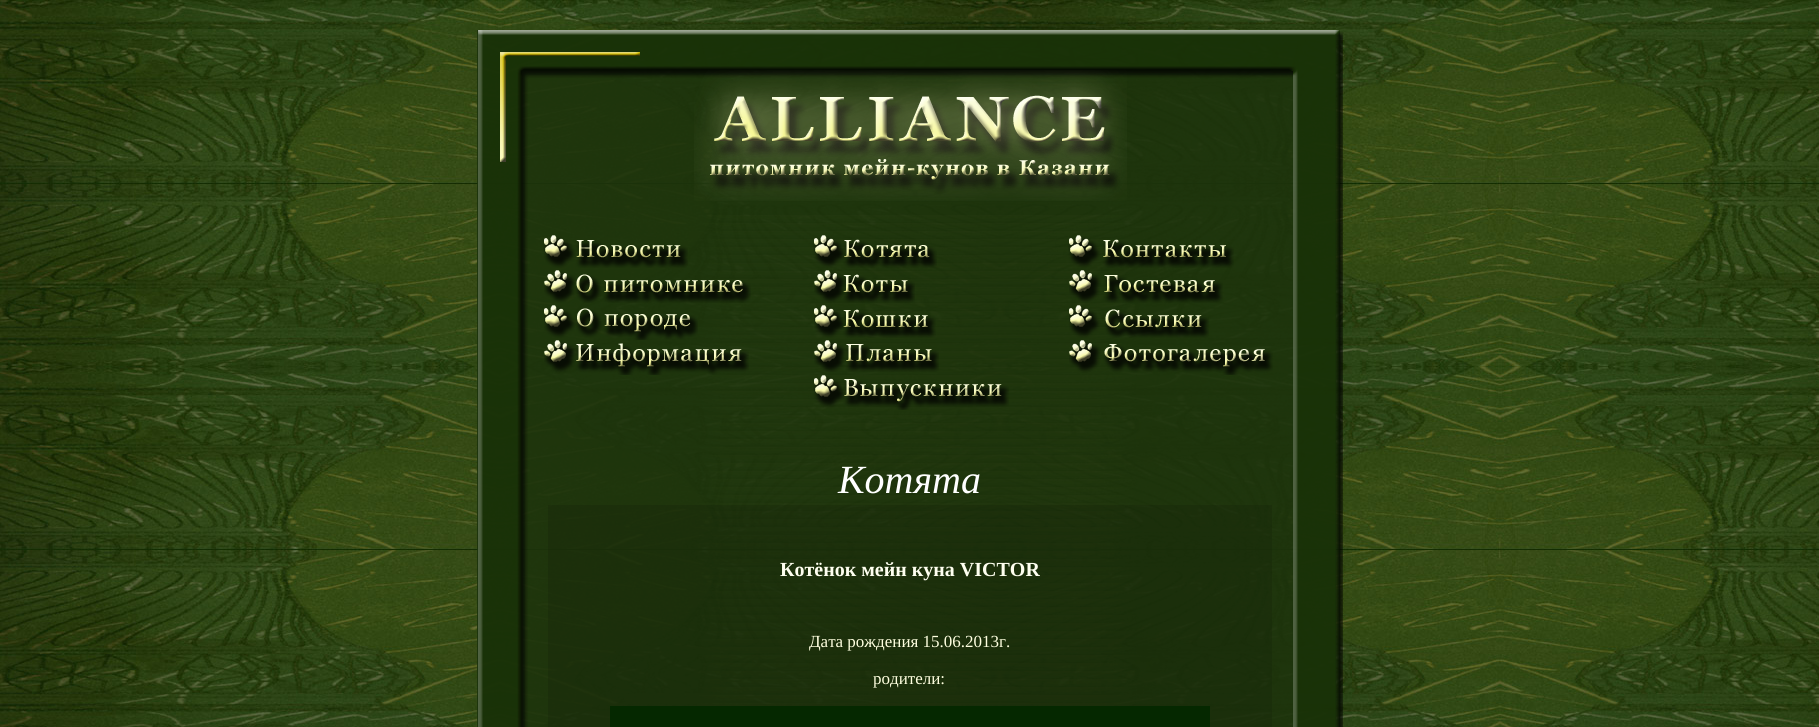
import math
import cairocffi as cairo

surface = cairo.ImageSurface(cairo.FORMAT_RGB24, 1819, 727)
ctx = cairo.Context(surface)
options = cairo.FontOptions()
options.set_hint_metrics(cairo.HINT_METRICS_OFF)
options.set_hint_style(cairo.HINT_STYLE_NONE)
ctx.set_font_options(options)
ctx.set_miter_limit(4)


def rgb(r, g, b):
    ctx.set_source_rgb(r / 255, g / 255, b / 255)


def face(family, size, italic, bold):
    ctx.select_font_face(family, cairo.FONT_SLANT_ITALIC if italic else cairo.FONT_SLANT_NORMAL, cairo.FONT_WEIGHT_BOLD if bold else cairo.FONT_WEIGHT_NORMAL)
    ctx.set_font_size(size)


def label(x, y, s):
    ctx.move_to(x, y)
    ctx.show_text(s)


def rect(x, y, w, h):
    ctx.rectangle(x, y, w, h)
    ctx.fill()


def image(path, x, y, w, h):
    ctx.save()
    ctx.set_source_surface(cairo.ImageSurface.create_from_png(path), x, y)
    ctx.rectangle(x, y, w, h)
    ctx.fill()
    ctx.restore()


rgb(255, 255, 255)
ctx.paint()
image('image0.png', 0, 0, 1819, 727)
image('image1.png', 477, 30, 866, 185)
image('image2.png', 694, 70, 433, 131)
image('image3.png', 477, 215, 866, 512)
image('image4.png', 543, 235, 145, 33)
image('image5.png', 544, 270, 207, 33)
image('image6.png', 544, 305, 154, 35)
image('image7.png', 544, 340, 205, 35)
image('image8.png', 813, 235, 124, 33)
image('image9.png', 814, 270, 101, 33)
image('image10.png', 814, 305, 122, 33)
image('image11.png', 814, 340, 125, 32)
image('image12.png', 813, 375, 196, 35)
image('image13.png', 1068, 235, 166, 33)
image('image14.png', 1069, 270, 154, 33)
image('image15.png', 1069, 305, 140, 33)
image('image16.png', 1069, 340, 204, 35)
face('Liberation Serif', 40, 1, 0)
rgb(255, 255, 255)
label(838, 493, 'Котята')
ctx.set_source_rgba(0.059, 0.098, 0.02, 0.2)
rect(548, 505, 724, 222)
face('Liberation Serif', 20, 0, 1)
rgb(255, 255, 240)
label(780, 576, 'Котёнок мейн куна VICTOR')
face('Liberation Serif', 17, 0, 0)
rgb(255, 255, 224)
label(809, 647, 'Дата рождения 15.06.2013г.')
label(873, 684, 'родители:')
rgb(5, 40, 0)
rect(610, 706, 600, 21)
surface.write_to_png('render.png')
